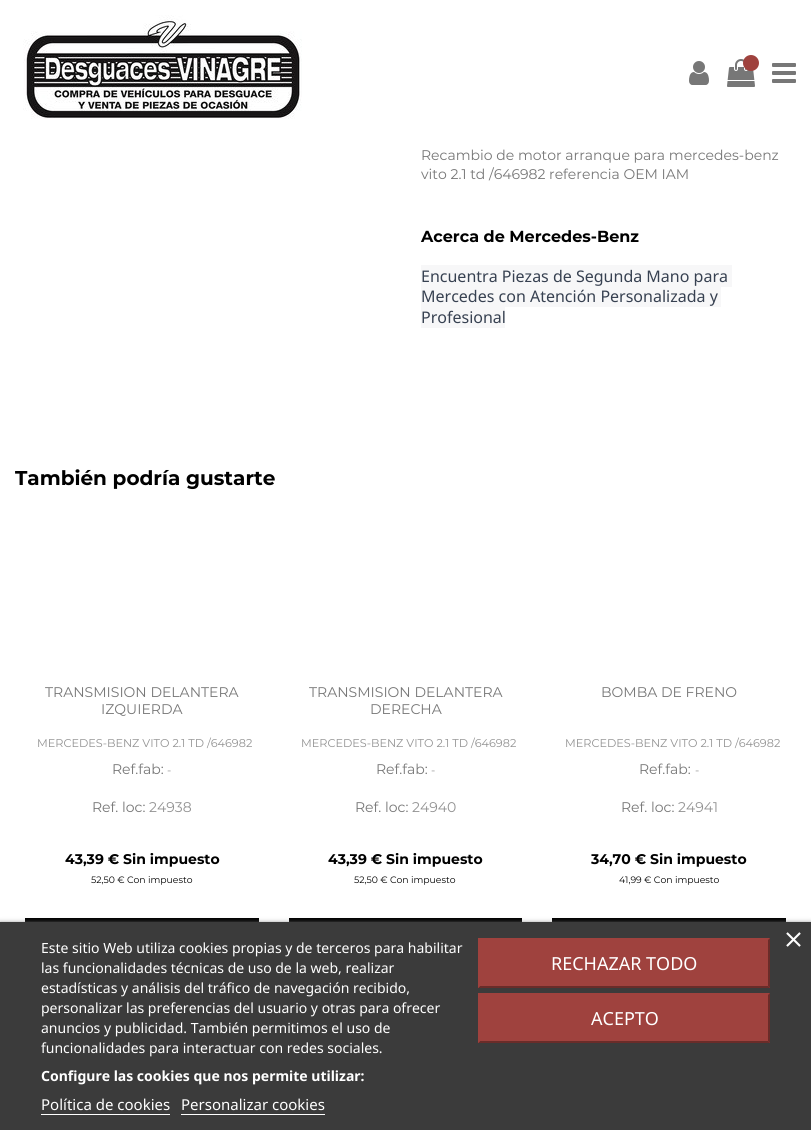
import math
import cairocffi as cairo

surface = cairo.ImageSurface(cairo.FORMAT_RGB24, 811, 1130)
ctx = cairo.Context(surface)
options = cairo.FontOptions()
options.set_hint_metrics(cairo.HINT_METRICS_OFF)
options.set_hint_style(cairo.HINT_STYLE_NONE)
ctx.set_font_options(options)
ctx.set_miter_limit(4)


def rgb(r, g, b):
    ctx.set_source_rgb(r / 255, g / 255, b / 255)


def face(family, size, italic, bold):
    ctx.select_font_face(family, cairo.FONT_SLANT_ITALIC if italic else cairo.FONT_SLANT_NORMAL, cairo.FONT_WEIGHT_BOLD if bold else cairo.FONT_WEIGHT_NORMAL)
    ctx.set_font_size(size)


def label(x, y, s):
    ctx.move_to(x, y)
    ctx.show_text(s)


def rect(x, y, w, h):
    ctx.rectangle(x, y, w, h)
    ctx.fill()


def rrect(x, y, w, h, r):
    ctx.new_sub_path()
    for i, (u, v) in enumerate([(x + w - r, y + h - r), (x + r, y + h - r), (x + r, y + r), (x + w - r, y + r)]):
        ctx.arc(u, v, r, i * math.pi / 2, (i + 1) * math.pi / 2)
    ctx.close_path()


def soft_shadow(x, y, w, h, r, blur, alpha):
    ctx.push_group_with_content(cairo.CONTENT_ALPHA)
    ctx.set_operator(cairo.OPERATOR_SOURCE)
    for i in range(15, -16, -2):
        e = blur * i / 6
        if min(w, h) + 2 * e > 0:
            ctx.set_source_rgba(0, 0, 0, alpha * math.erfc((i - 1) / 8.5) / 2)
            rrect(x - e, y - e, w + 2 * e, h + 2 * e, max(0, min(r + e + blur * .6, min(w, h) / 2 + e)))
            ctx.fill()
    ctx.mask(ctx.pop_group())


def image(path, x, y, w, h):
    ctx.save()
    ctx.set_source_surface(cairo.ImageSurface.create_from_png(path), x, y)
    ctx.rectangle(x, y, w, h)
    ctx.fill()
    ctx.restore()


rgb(255, 255, 255)
ctx.paint()
image('image0.png', 23, 15, 279, 104)
image('image1.png', 689, 61, 20, 24)
image('image2.png', 727, 59, 28, 28)
rgb(159, 66, 62)
ctx.arc(751, 63, 8, 0, 2 * math.pi)
ctx.fill()
image('image3.png', 772, 63, 24, 20)
face('Montserrat Thin', 14, 0, 0)
rgb(119, 119, 119)
label(421, 160, 'Recambio de motor arranque para mercedes-benz')
label(421, 179, 'vito 2.1 td /646982 referencia OEM IAM')
face('Montserrat', 16, 0, 1)
rgb(0, 0, 0)
label(421, 242, 'Acerca de Mercedes-Benz')
rgb(247, 247, 248)
rect(421, 265, 311, 22)
rect(717, 285, 4, 22)
face('Noto Sans', 16, 0, 0)
rgb(55, 65, 81)
label(421, 282, 'Encuentra Piezas de Segunda Mano para')
rgb(247, 247, 248)
rect(421, 287, 296, 20)
rgb(55, 65, 81)
label(421, 302, 'Mercedes con Atención Personalizada y')
rgb(247, 247, 248)
rect(421, 307, 84, 21)
rgb(55, 65, 81)
label(421, 323, 'Profesional')
face('Montserrat', 20, 0, 1)
rgb(0, 0, 0)
label(15, 485, 'También podría gustarte')
face('Montserrat Thin', 14, 0, 0)
rgb(119, 119, 119)
label(45, 697, 'TRANSMISION DELANTERA')
label(101, 714, 'IZQUIERDA')
face('Montserrat Thin', 11.25, 0, 0)
rgb(146, 146, 146)
label(37, 747, 'MERCEDES-BENZ VITO 2.1 TD /646982')
face('Montserrat Thin', 14, 0, 0)
rgb(119, 119, 119)
label(112, 774, 'Ref.fab:')
face('Montserrat Thin', 11.25, 0, 0)
rgb(146, 146, 146)
label(167, 774, '-')
face('Montserrat Thin', 14, 0, 0)
rgb(119, 119, 119)
label(92, 812, 'Ref. loc:')
rgb(146, 146, 146)
label(149, 812, '24938')
face('Montserrat', 14, 0, 1)
rgb(0, 0, 0)
label(65, 864, '43,39 € Sin impuesto')
face('Montserrat Thin', 9.25, 0, 0)
label(91, 883, '52,50 € Con impuesto')
rect(25, 918, 234, 4)
face('Montserrat Thin', 14, 0, 0)
rgb(119, 119, 119)
label(309, 697, 'TRANSMISION DELANTERA')
label(370, 714, 'DERECHA')
face('Montserrat Thin', 11.25, 0, 0)
rgb(146, 146, 146)
label(301, 747, 'MERCEDES-BENZ VITO 2.1 TD /646982')
face('Montserrat Thin', 14, 0, 0)
rgb(119, 119, 119)
label(376, 774, 'Ref.fab:')
face('Montserrat Thin', 11.25, 0, 0)
rgb(146, 146, 146)
label(431, 774, '-')
face('Montserrat Thin', 14, 0, 0)
rgb(119, 119, 119)
label(355, 812, 'Ref. loc:')
rgb(146, 146, 146)
label(412, 812, '24940')
face('Montserrat', 14, 0, 1)
rgb(0, 0, 0)
label(328, 864, '43,39 € Sin impuesto')
face('Montserrat Thin', 9.25, 0, 0)
label(354, 883, '52,50 € Con impuesto')
rect(289, 918, 233, 4)
face('Montserrat Thin', 14, 0, 0)
rgb(119, 119, 119)
label(601, 697, 'BOMBA DE FRENO')
face('Montserrat Thin', 11.25, 0, 0)
rgb(146, 146, 146)
label(565, 747, 'MERCEDES-BENZ VITO 2.1 TD /646982')
face('Montserrat Thin', 14, 0, 0)
rgb(119, 119, 119)
label(639, 774, 'Ref.fab:')
face('Montserrat Thin', 11.25, 0, 0)
rgb(146, 146, 146)
label(695, 774, '-')
face('Montserrat Thin', 14, 0, 0)
rgb(119, 119, 119)
label(621, 812, 'Ref. loc:')
rgb(146, 146, 146)
label(678, 812, '24941')
face('Montserrat', 14, 0, 1)
rgb(0, 0, 0)
label(591, 864, '34,70 € Sin impuesto')
face('Montserrat Thin', 9.25, 0, 0)
label(619, 883, '41,99 € Con impuesto')
rect(552, 918, 234, 4)
rgb(112, 112, 112)
soft_shadow(0, 923, 811, 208, 0, 2.5, 1)
rgb(59, 59, 59)
rect(0, 922, 811, 208)
image('image4.png', 786, 932, 15, 15)
face('Noto Sans', 14, 0, 0)
rgb(255, 255, 255)
label(41, 953, 'Este sitio Web utiliza cookies propias y de terceros para habilitar')
label(41, 973, 'las funcionalidades técnicas de uso de la web, realizar')
label(41, 993, 'estadísticas y análisis del tráfico de navegación recibido,')
label(41, 1013, 'personalizar las preferencias del usuario y otras para ofrecer')
label(41, 1033, 'anuncios y publicidad. También permitimos el uso de')
label(41, 1053, 'funcionalidades para interactuar con redes sociales.')
face('Noto Sans', 14, 0, 1)
label(41, 1081, 'Configure las cookies que nos permite utilizar:')
face('Noto Sans', 15, 0, 0)
label(41, 1110, 'Política de cookies')
rect(41, 1114, 129, 1)
label(181, 1110, 'Personalizar cookies')
rect(181, 1114, 144, 1)
rgb(159, 66, 62)
rect(478, 938, 292, 50)
rgb(106, 44, 41)
ctx.new_path()
ctx.move_to(770, 938)
ctx.line_to(770, 988)
ctx.line_to(768, 986)
ctx.line_to(768, 940)
ctx.close_path()
ctx.fill()
ctx.new_path()
ctx.move_to(770, 988)
ctx.line_to(478, 988)
ctx.line_to(480, 986)
ctx.line_to(768, 986)
ctx.close_path()
ctx.fill()
rgb(159, 66, 62)
ctx.new_path()
ctx.move_to(478, 988)
ctx.line_to(478, 938)
ctx.line_to(480, 940)
ctx.line_to(480, 986)
ctx.close_path()
ctx.fill()
face('Noto Sans', 18, 0, 0)
rgb(255, 255, 255)
label(551, 970, 'RECHAZAR TODO')
rgb(159, 66, 62)
rect(478, 993, 292, 50)
rgb(106, 44, 41)
ctx.new_path()
ctx.move_to(770, 993)
ctx.line_to(770, 1043)
ctx.line_to(768, 1041)
ctx.line_to(768, 995)
ctx.close_path()
ctx.fill()
ctx.new_path()
ctx.move_to(770, 1043)
ctx.line_to(478, 1043)
ctx.line_to(480, 1041)
ctx.line_to(768, 1041)
ctx.close_path()
ctx.fill()
rgb(159, 66, 62)
ctx.new_path()
ctx.move_to(478, 1043)
ctx.line_to(478, 993)
ctx.line_to(480, 995)
ctx.line_to(480, 1041)
ctx.close_path()
ctx.fill()
rgb(255, 255, 255)
label(591, 1025, 'ACEPTO')
surface.write_to_png('render.png')
